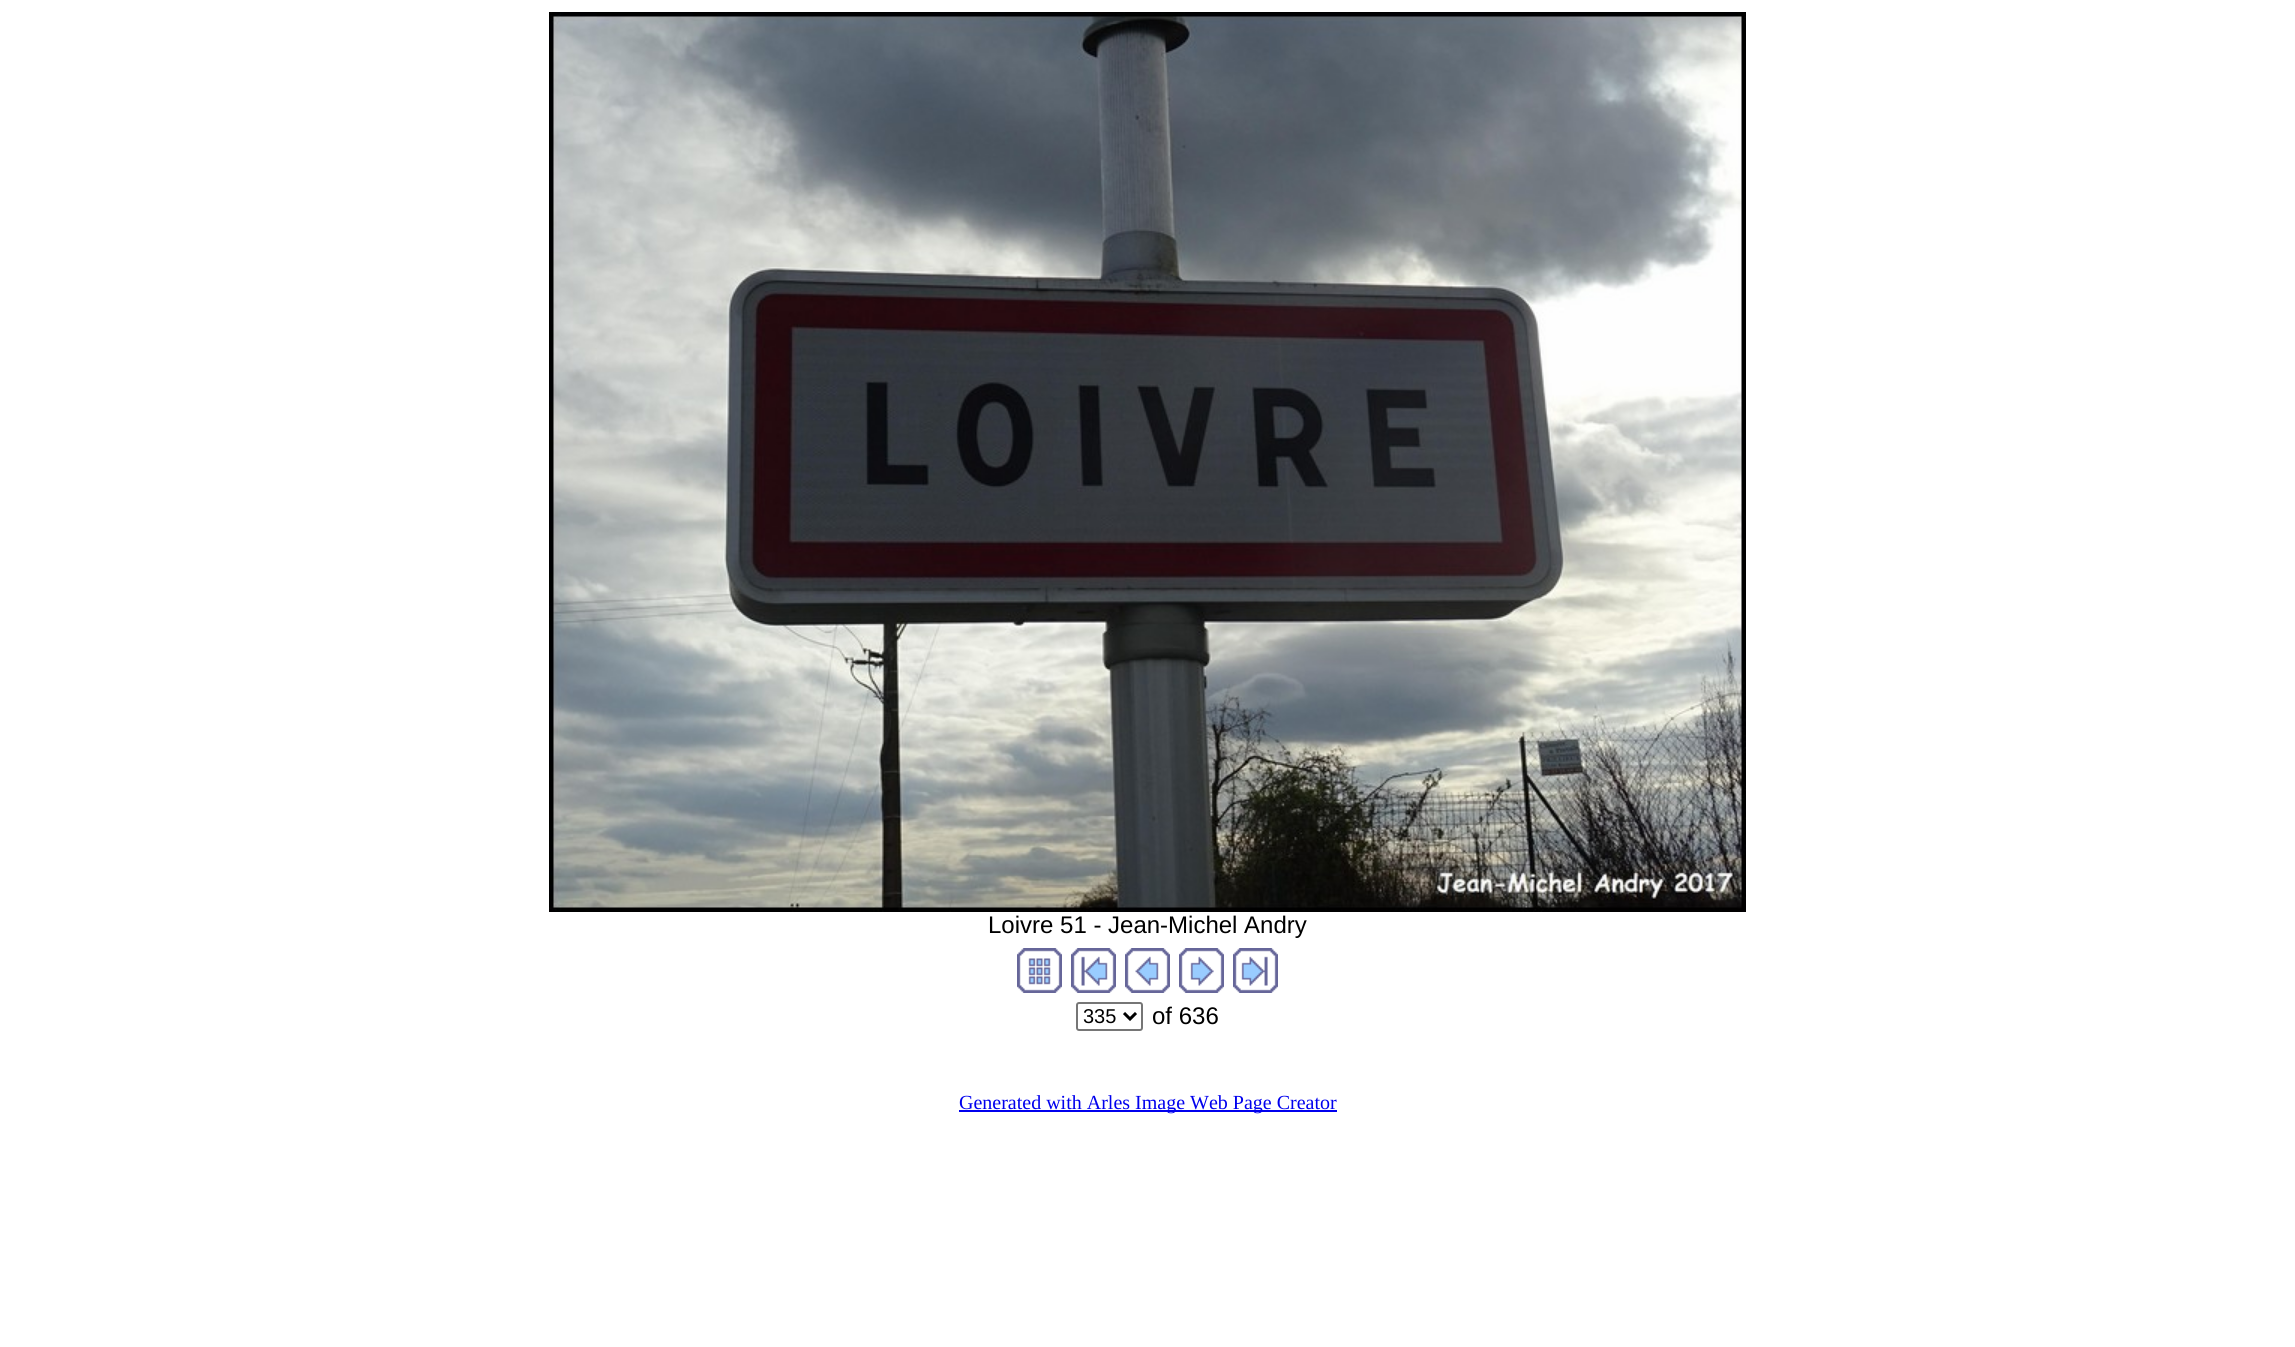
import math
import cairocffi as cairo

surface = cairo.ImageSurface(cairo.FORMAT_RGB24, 2295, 1347)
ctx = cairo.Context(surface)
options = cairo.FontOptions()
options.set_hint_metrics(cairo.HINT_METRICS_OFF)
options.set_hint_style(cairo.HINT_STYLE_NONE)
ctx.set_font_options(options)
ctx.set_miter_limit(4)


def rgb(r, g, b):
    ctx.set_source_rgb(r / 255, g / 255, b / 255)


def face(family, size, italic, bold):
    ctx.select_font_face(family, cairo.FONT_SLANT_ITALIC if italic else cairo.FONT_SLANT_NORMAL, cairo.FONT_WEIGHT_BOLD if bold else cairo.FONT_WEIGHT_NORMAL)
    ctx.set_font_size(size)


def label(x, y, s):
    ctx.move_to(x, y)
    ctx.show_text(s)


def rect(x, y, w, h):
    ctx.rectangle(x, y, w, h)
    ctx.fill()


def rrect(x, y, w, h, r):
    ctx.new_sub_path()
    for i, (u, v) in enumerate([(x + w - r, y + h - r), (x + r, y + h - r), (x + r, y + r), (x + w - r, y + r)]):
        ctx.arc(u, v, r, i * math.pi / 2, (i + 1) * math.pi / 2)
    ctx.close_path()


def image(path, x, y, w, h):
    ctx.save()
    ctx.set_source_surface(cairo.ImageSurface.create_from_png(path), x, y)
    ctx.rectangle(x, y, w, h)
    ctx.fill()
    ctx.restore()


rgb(255, 255, 255)
ctx.paint()
image('image0.png', 549, 12, 1197, 900)
face('Liberation Sans', 24, 0, 0)
rgb(0, 0, 0)
label(988, 933, 'Loivre 51 - Jean-Michel Andry')
image('image1.png', 1017, 948, 45, 45)
image('image2.png', 1071, 948, 45, 45)
image('image3.png', 1125, 948, 45, 45)
image('image4.png', 1179, 948, 45, 45)
image('image5.png', 1233, 948, 45, 45)
rrect(1077, 1003, 65, 27, 2)
rgb(118, 118, 118)
ctx.stroke()
ctx.new_path()
ctx.move_to(1124, 1013)
ctx.line_to(1130, 1019)
ctx.line_to(1136, 1013)
rgb(0, 0, 0)
ctx.set_line_width(3)
ctx.stroke()
face('Liberation Sans', 20, 0, 0)
label(1083, 1023, '335')
face('Liberation Sans', 24, 0, 0)
label(1152, 1024, 'of 636')
rgb(0, 0, 238)
rect(959, 1110, 378, 2)
face('Liberation Serif', 20, 0, 0)
label(959, 1109, 'Generated with Arles Image Web Page Creator')
surface.write_to_png('render.png')
